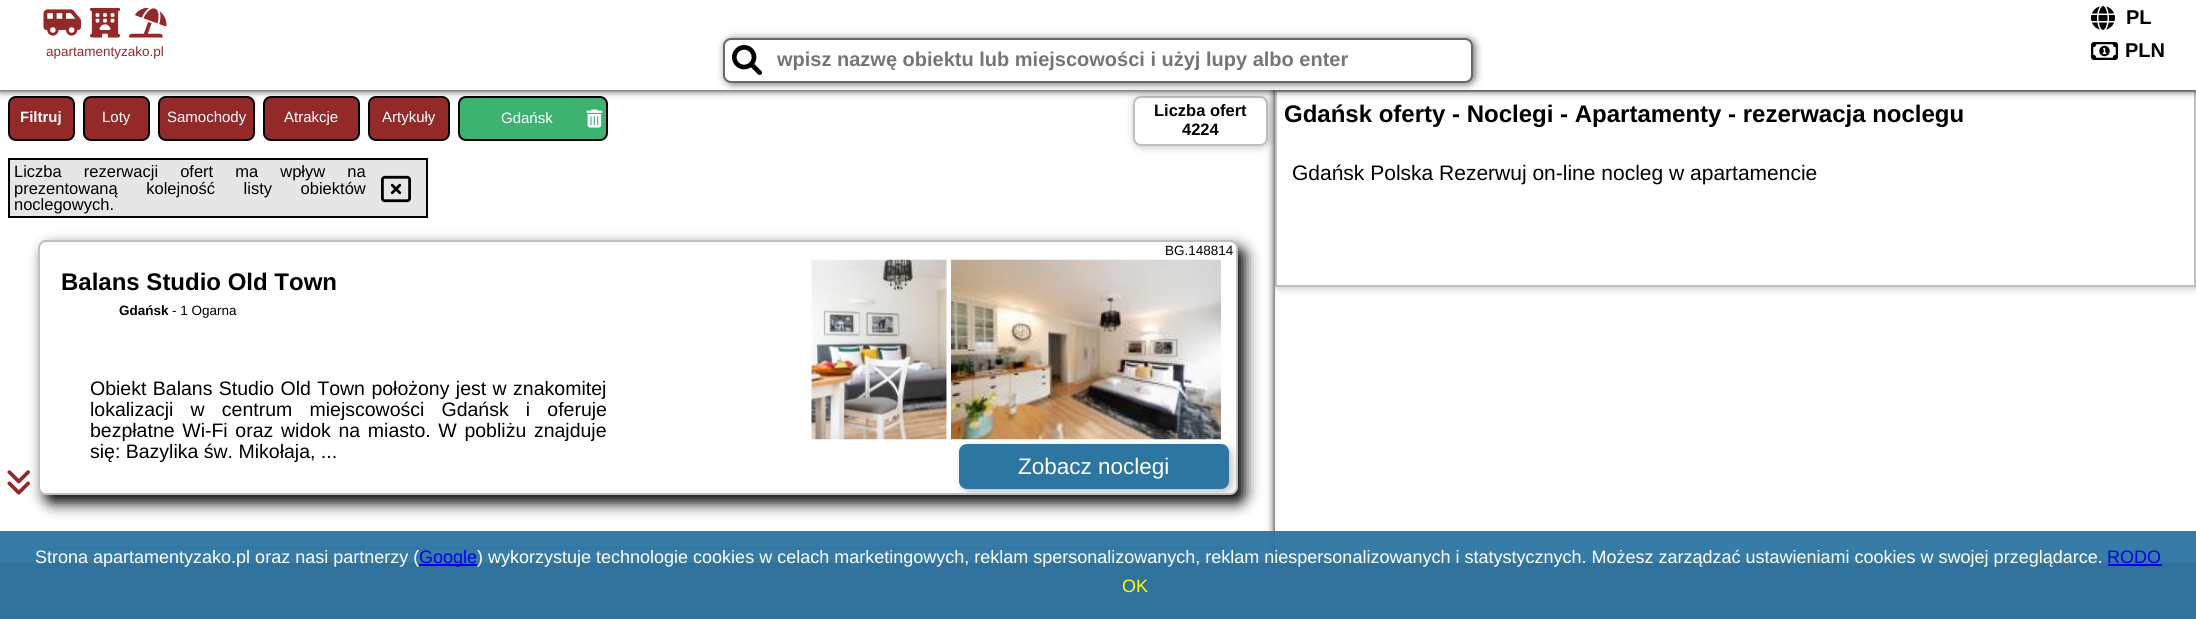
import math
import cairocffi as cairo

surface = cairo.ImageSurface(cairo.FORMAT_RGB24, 2196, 619)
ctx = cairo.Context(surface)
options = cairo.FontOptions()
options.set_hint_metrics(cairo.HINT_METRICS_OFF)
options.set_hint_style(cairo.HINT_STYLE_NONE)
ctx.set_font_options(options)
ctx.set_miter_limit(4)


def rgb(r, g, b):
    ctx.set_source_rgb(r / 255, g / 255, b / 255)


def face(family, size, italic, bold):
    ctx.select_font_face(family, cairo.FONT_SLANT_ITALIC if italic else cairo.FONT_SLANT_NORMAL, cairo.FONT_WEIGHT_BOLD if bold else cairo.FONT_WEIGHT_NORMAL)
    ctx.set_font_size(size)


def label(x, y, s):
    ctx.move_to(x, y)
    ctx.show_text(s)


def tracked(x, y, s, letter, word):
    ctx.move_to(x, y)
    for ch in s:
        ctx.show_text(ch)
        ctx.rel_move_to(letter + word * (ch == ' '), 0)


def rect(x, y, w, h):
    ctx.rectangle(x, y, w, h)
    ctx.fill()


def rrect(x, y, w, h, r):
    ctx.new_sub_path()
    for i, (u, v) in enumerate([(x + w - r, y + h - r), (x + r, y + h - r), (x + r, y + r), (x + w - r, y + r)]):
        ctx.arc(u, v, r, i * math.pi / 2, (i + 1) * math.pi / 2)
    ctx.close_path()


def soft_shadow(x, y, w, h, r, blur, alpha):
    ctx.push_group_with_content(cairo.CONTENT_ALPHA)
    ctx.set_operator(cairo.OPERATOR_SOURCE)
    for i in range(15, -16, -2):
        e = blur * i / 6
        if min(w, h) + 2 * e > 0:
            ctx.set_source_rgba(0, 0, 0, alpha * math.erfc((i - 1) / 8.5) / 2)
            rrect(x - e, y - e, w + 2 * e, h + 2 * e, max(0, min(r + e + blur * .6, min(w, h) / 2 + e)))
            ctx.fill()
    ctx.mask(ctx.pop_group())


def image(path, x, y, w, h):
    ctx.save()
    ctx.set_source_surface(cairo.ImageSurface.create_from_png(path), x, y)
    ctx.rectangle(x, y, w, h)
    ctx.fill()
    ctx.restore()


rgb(255, 255, 255)
ctx.paint()
rgb(148, 41, 41)
rrect(9, 97, 65, 43, 7)
ctx.fill_preserve()
rgb(0, 0, 0)
ctx.stroke()
rgb(148, 41, 41)
rrect(84, 97, 65, 43, 7)
ctx.fill_preserve()
rgb(0, 0, 0)
ctx.stroke()
rgb(148, 41, 41)
rrect(159, 97, 95, 43, 7)
ctx.fill_preserve()
rgb(0, 0, 0)
ctx.stroke()
rgb(148, 41, 41)
rrect(264, 97, 95, 43, 7)
ctx.fill_preserve()
rgb(0, 0, 0)
ctx.stroke()
rgb(148, 41, 41)
rrect(369, 97, 80, 43, 7)
ctx.fill_preserve()
rgb(0, 0, 0)
ctx.stroke()
rgb(60, 179, 113)
rrect(459, 97, 148, 43, 7)
ctx.fill_preserve()
rgb(0, 0, 0)
ctx.stroke()
rgb(192, 192, 192)
soft_shadow(1134, 98, 135, 49, 8, 4, 1)
rgb(255, 255, 255)
rrect(1134, 97, 133, 48, 7)
ctx.fill_preserve()
rgb(192, 192, 192)
ctx.stroke()
ctx.save()
ctx.set_fill_rule(cairo.FILL_RULE_EVEN_ODD)
ctx.new_path()
ctx.move_to(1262, 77)
ctx.line_to(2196, 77)
ctx.line_to(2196, 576)
ctx.line_to(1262, 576)
ctx.close_path()
ctx.move_to(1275, 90)
ctx.line_to(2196, 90)
ctx.line_to(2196, 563)
ctx.line_to(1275, 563)
ctx.close_path()
ctx.clip()
rgb(0, 0, 0)
soft_shadow(1275, 90, 921, 473, 0, 4, 1)
ctx.restore()
ctx.save()
ctx.rectangle(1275, 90, 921, 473)
ctx.clip()
rgb(192, 192, 192)
soft_shadow(1277, 92, 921, 196, 0, 4, 1)
ctx.restore()
rgb(255, 255, 255)
ctx.rectangle(1276, 91, 919, 195)
ctx.fill_preserve()
rgb(192, 192, 192)
ctx.stroke()
rgb(0, 0, 0)
soft_shadow(0, 0, 2196, 90, 0, 4, 1)
rgb(255, 255, 255)
rect(0, 0, 2196, 90)
image('image0.png', 2091, 6, 24, 24)
face('Liberation Sans', 20, 0, 1)
rgb(0, 0, 0)
label(2126, 24, 'PL')
image('image1.png', 43, 9, 38, 27)
image('image2.png', 90, 8, 30, 30)
image('image3.png', 129, 8, 38, 30)
face('Liberation Sans', 13.5, 0, 0)
rgb(148, 41, 41)
label(46, 56, 'apartamentyzako.pl')
rgb(103, 104, 104)
soft_shadow(725, 39, 750, 45, 8, 4, 1)
rgb(255, 255, 255)
rrect(724, 39, 748, 43, 7)
ctx.fill_preserve()
rgb(103, 104, 104)
ctx.stroke()
image('image4.png', 732, 45, 30, 30)
face('Liberation Sans', 20, 0, 1)
rgb(117, 117, 117)
label(777, 66, 'wpisz nazwę obiektu lub miejscowości i użyj lupy albo enter')
image('image5.png', 2091, 42, 27, 18)
rgb(0, 0, 0)
label(2125, 57, 'PLN')
face('Liberation Sans', 15, 0, 1)
rgb(255, 255, 255)
label(20, 122, 'Filtruj')
face('Liberation Sans', 15, 0, 0)
label(102, 122, 'Loty')
label(167, 122, 'Samochody')
label(284, 122, 'Atrakcje')
label(382, 122, 'Artykuły')
label(501, 123, 'Gdańsk')
image('image6.png', 586, 109, 17, 19)
face('Liberation Sans', 16.5, 0, 1)
rgb(0, 0, 0)
label(1154, 116, 'Liczba ofert')
label(1182, 135, '4224')
rgb(230, 230, 230)
ctx.rectangle(9, 159, 418, 58)
ctx.fill_preserve()
rgb(0, 0, 0)
ctx.stroke()
face('Liberation Sans', 16.5, 0, 0)
tracked(14, 177, 'Liczba rezerwacji ofert ma wpływ na', 0, 17.5)
tracked(14, 194, 'prezentowaną kolejność listy obiektów', 0, 24)
image('image7.png', 381, 175, 30, 28)
label(14, 210, 'noclegowych.')
rgb(0, 0, 0)
soft_shadow(45, 248, 1200, 255, 8, 7.5, 1)
rgb(255, 255, 255)
rrect(39, 241, 1198, 253, 7)
ctx.fill_preserve()
rgb(192, 192, 192)
ctx.stroke()
face('Liberation Sans', 13.5, 0, 0)
rgb(0, 0, 0)
label(1165, 255, 'BG.148814')
face('Liberation Sans', 24, 0, 1)
label(61, 290, 'Balans Studio Old Town')
face('Liberation Sans', 13.5, 0, 1)
label(119, 315, 'Gdańsk')
face('Liberation Sans', 13.5, 0, 0)
label(172, 315, '- 1 Ogarna')
face('Liberation Sans', 19.5, 0, 0)
tracked(90, 395, 'Obiekt Balans Studio Old Town położony jest w znakomitej', 0, 1)
tracked(90, 416, 'lokalizacji w centrum miejscowości Gdańsk i oferuje', 0, 11.75)
tracked(90, 437, 'bezpłatne Wi-Fi oraz widok na miasto. W pobliżu znajduje', 0, 2.25)
label(90, 458, 'się: Bazylika św. Mikołaja, ...')
image('image8.png', 811, 259, 136, 181)
image('image9.png', 951, 259, 270, 181)
ctx.save()
rrect(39, 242, 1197, 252, 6)
ctx.clip()
rgb(192, 192, 192)
soft_shadow(962, 447, 270, 45, 8, 4, 1)
ctx.restore()
rgb(45, 118, 162)
rrect(959, 444, 270, 45, 8)
ctx.fill()
face('Liberation Sans', 22.5, 0, 0)
rgb(255, 255, 255)
label(1018, 474, 'Zobacz noclegi')
image('image10.png', 7, 470, 23, 25)
rgb(0, 0, 0)
soft_shadow(45, 555, 1200, 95, 8, 7.5, 1)
rgb(255, 255, 255)
ctx.new_path()
ctx.move_to(46, 548)
ctx.line_to(1230, 548)
ctx.curve_to(1234.5, 548, 1238, 551.5, 1238, 556)
ctx.line_to(1238, 563)
ctx.line_to(38, 563)
ctx.line_to(38, 556)
ctx.curve_to(38, 551.5, 41.5, 548, 46, 548)
ctx.close_path()
ctx.fill()
rrect(39, 549, 1198, 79, 7)
rgb(192, 192, 192)
ctx.stroke()
face('Liberation Sans', 24, 0, 1)
rgb(0, 0, 0)
label(1284, 122, 'Gdańsk oferty - Noclegi - Apartamenty - rezerwacja noclegu')
face('Liberation Sans', 21, 0, 0)
label(1292, 180, 'Gdańsk Polska Rezerwuj on-line nocleg w apartamencie')
rgb(148, 41, 41)
soft_shadow(0, 563, 2196, 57, 0, 1.5, 1)
rgb(148, 41, 41)
rect(0, 563, 2196, 56)
ctx.set_source_rgba(0.176, 0.463, 0.635, 0.95)
rect(0, 531, 2196, 88)
face('Liberation Sans', 18, 0, 0)
rgb(255, 255, 255)
label(35, 563, 'Strona apartamentyzako.pl oraz nasi partnerzy (')
rgb(0, 0, 238)
rect(419, 564, 58, 2)
label(419, 563, 'Google')
rgb(255, 255, 255)
label(477, 563, ') wykorzystuje technologie cookies w celach marketingowych, reklam spersonalizowanych, reklam niespersonalizowanych i statystycznych. Możesz zarządzać ustawieniami cookies w swojej przeglądarce.')
rgb(0, 0, 238)
label(2107, 563, 'RODO')
rect(2108, 564, 54, 2)
rgb(255, 255, 0)
label(1122, 592, 'OK')
surface.write_to_png('render.png')
